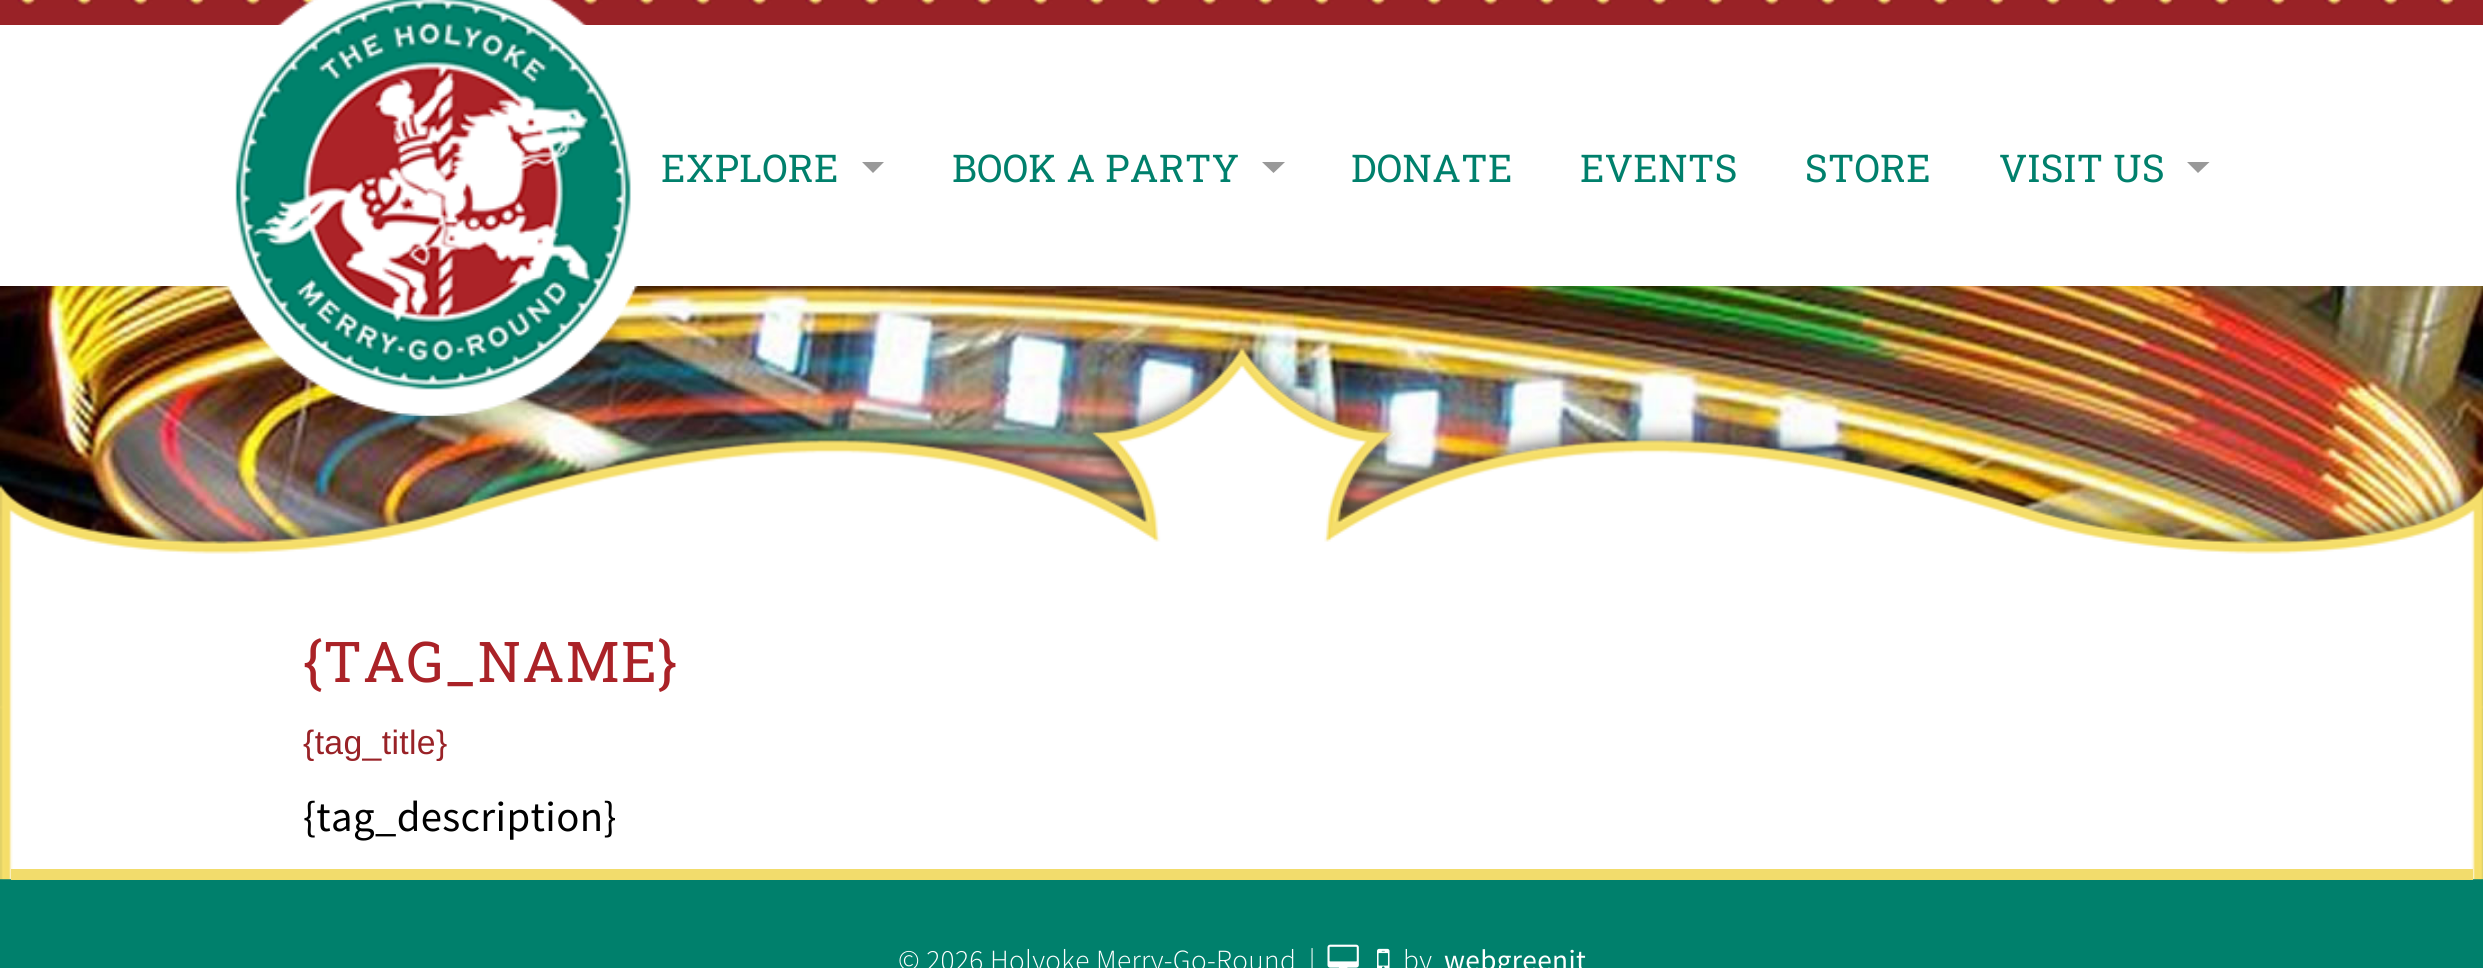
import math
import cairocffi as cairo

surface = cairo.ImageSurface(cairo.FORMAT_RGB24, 2483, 968)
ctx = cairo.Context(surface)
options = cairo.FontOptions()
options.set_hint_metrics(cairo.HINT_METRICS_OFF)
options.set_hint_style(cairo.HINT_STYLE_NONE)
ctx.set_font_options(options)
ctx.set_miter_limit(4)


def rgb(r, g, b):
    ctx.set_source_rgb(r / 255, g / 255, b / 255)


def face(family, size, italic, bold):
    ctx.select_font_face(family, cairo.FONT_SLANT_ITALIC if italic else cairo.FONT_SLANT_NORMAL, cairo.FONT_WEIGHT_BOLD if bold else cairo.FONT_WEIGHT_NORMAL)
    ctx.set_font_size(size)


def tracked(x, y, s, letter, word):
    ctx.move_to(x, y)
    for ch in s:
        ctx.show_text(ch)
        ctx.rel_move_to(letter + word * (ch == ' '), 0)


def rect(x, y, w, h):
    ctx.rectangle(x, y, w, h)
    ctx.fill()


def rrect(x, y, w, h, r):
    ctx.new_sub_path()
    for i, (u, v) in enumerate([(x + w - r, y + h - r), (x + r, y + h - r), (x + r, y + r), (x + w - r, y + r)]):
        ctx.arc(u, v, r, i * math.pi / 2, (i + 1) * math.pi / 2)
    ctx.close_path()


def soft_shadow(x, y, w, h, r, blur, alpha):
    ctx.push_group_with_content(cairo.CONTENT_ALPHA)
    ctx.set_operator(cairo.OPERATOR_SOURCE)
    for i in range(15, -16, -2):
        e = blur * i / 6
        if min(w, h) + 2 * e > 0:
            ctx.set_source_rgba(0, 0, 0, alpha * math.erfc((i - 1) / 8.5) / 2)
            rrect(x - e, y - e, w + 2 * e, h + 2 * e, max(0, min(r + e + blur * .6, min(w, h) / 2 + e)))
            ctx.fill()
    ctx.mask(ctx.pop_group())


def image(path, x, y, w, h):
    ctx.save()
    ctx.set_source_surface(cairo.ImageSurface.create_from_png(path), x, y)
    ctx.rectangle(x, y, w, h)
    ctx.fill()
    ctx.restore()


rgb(0, 128, 108)
ctx.paint()
rgb(0, 0, 0)
soft_shadow(0, 293, 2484, 297, 0, 11, 0.5)
image('image2.png', 0, 286, 2483, 297)
soft_shadow(-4, -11, 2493, 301, 0, 3.5, 0.05)
rgb(153, 34, 39)
rect(0, 0, 2483, 25)
image('image0.png', 17, 0, 2438, 8)
rgb(255, 255, 255)
rect(0, 25, 2483, 261)
image('image3.png', 0, 335, 2483, 545)
image('image1.png', 226, 0, 412, 416)
face('Roboto Slab', 38.25, 0, 0)
rgb(0, 128, 108)
tracked(661, 182, 'EXPLORE', 0.35, 0)
rgb(153, 153, 153)
ctx.new_path()
ctx.move_to(862, 162)
ctx.line_to(884, 162)
ctx.line_to(873, 173)
ctx.close_path()
ctx.fill()
rgb(0, 128, 108)
tracked(952, 182, 'BOOK A PARTY', 0.35, 0)
rgb(153, 153, 153)
ctx.new_path()
ctx.move_to(1262, 162)
ctx.line_to(1285, 162)
ctx.line_to(1273.5, 173)
ctx.close_path()
ctx.fill()
rgb(0, 128, 108)
tracked(1351, 182, 'DONATE', 0.35, 0)
tracked(1580, 182, 'EVENTS', 0.35, 0)
tracked(1805, 182, 'STORE', 0.35, 0)
tracked(1999, 182, 'VISIT US', 0.35, 0)
rgb(153, 153, 153)
ctx.new_path()
ctx.move_to(2187, 162)
ctx.line_to(2209.5, 162)
ctx.line_to(2198, 173)
ctx.close_path()
ctx.fill()
rgb(242, 220, 108)
rect(11, 869, 2462, 11)
face('Roboto Slab', 56.25, 0, 0)
rgb(170, 34, 39)
tracked(303, 682, '{TAG_NAME}', 1.1, 0)
face('Liberation Sans', 33.75, 0, 0)
rgb(153, 34, 39)
tracked(303, 754, '{tag_title}', 0.35, 0)
face('Source Sans Pro', 42.75, 0, 0)
rgb(0, 0, 0)
tracked(303, 831, '{tag_description}', 0.35, 0)
face('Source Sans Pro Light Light', 29.25, 0, 0)
rgb(255, 255, 255)
tracked(898, 970, '© 2026 Holyoke Merry-Go-Round  |', 0.35, 0)
image('image4.png', 1327, 944, 32, 24)
image('image5.png', 1377, 948, 13, 20)
tracked(1403, 970, 'by', 0.35, 0)
face('Source Sans Pro', 29.25, 0, 0)
tracked(1444, 970, 'webgreenit', 0.35, 0)
surface.write_to_png('render.png')
